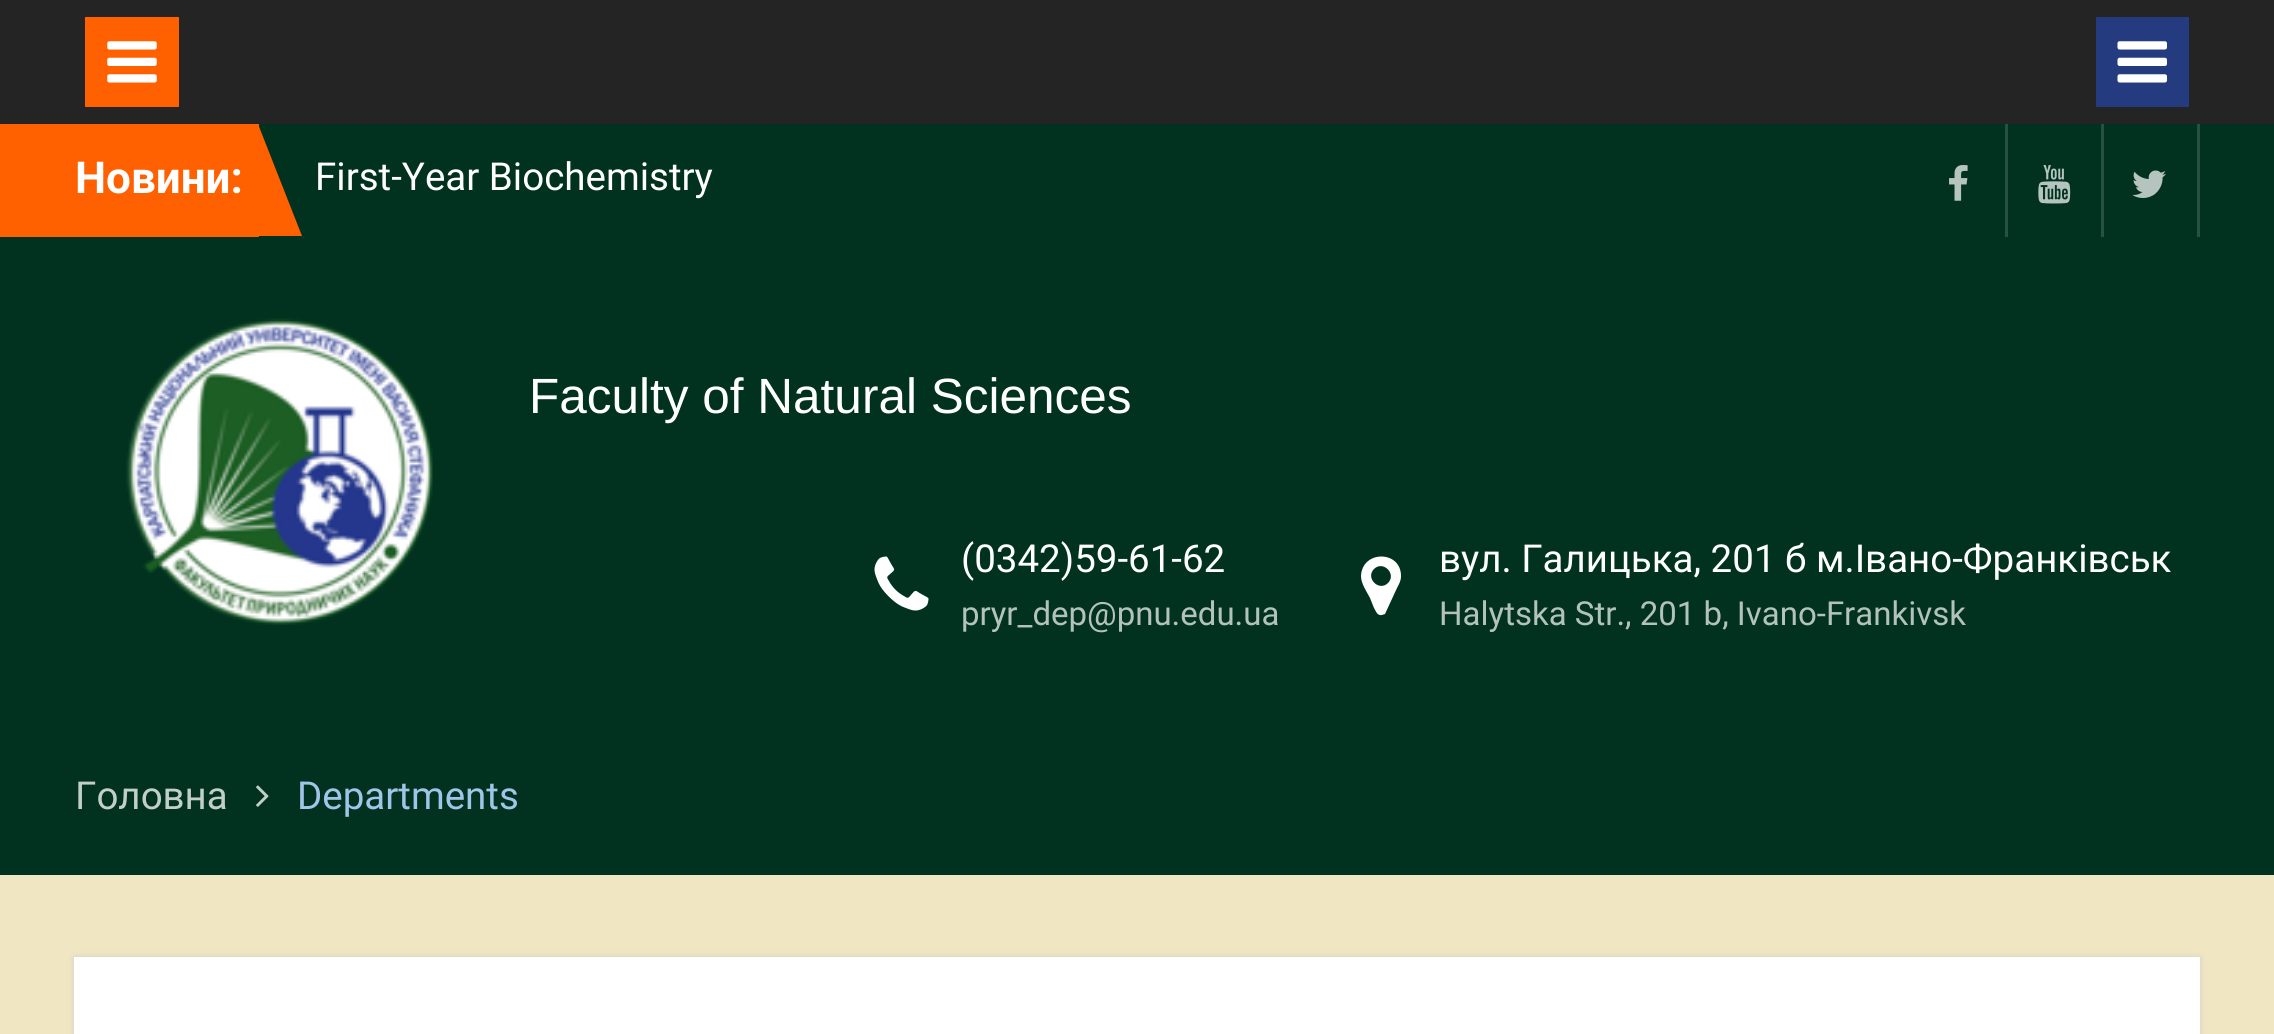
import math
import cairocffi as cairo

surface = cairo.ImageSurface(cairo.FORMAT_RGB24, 2274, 1034)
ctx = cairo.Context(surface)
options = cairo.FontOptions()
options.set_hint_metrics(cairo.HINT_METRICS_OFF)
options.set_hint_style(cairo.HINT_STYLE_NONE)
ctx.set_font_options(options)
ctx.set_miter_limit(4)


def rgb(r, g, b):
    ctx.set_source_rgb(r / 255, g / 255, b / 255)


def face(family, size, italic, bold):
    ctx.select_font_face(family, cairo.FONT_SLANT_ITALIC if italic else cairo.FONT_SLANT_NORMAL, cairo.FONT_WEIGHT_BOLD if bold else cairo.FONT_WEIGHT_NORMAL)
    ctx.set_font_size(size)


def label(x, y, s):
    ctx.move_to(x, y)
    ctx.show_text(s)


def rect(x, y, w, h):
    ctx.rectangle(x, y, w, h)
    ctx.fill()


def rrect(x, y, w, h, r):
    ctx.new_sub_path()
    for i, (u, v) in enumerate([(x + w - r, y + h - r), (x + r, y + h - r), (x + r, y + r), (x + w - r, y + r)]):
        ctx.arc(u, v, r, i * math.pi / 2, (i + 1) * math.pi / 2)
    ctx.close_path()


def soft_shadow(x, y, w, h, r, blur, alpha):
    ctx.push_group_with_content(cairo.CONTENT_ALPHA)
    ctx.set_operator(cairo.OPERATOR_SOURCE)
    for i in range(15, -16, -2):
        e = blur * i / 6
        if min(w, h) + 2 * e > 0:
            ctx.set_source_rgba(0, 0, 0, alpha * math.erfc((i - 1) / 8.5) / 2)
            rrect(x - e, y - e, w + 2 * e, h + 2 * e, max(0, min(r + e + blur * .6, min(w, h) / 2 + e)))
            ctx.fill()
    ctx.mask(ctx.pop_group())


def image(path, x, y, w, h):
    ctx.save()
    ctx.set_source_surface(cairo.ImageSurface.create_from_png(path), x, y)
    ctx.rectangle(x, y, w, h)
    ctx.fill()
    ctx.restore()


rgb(240, 230, 194)
ctx.paint()
rgb(36, 36, 36)
rect(0, 0, 2274, 124)
rgb(255, 96, 0)
rect(85, 17, 94, 90)
image('image0.png', 107, 41, 50, 42)
rgb(37, 59, 128)
rect(2096, 17, 93, 90)
image('image1.png', 2117, 41, 50, 42)
rgb(1, 50, 32)
rect(259, 124, 2015, 113)
rgb(255, 96, 0)
rect(0, 124, 259, 113)
face('Roboto', 44, 0, 1)
rgb(255, 255, 255)
label(75, 193, 'Новини:')
rgb(255, 96, 0)
ctx.new_path()
ctx.move_to(258, 236)
ctx.line_to(258, 124)
ctx.line_to(302, 236)
ctx.close_path()
ctx.fill()
face('Roboto', 38.5, 0, 0)
rgb(255, 255, 255)
label(315, 190, 'First-Year Biochemistry')
rgb(39, 81, 65)
rect(2005, 124, 3, 113)
image('image2.png', 1949, 165, 19, 36)
rect(2101, 124, 3, 113)
image('image3.png', 2038, 165, 33, 39)
rect(2197, 124, 3, 113)
image('image4.png', 2132, 170, 34, 28)
rgb(1, 50, 32)
rect(0, 237, 2274, 638)
image('image5.png', 126, 318, 307, 307)
face('Liberation Sans', 49.5, 0, 0)
rgb(255, 255, 255)
label(529, 413, 'Faculty of Natural Sciences')
image('image6.png', 874, 556, 55, 55)
face('Roboto', 38.5, 0, 0)
label(961, 572, '(0342)59-61-62')
face('Roboto', 33, 0, 0)
rgb(179, 194, 188)
label(961, 625, 'pryr_dep@pnu.edu.ua')
rgb(255, 255, 255)
ctx.new_path()
ctx.move_to(1388, 583)
ctx.curve_to(1397, 574, 1383, 560, 1374, 569)
ctx.curve_to(1365, 578, 1379, 592, 1388, 583)
ctx.close_path()
ctx.move_to(1401, 576)
ctx.curve_to(1401, 581, 1399, 584, 1397, 588)
ctx.line_to(1385, 614)
ctx.line_to(1382, 615)
ctx.curve_to(1377, 616, 1376, 611, 1374, 608)
ctx.line_to(1370, 598)
ctx.curve_to(1367, 592, 1361, 584, 1361, 576)
ctx.curve_to(1362, 550, 1401, 550, 1401, 576)
ctx.close_path()
ctx.fill()
face('Roboto', 38.5, 0, 0)
label(1439, 572, 'вул. Галицька, 201 б м.Івано-Франківськ')
face('Roboto', 33, 0, 0)
rgb(179, 194, 188)
label(1439, 625, 'Halytska Str., 201 b, Ivano-Frankivsk')
face('Roboto', 38.5, 0, 0)
rgb(194, 206, 201)
label(75, 809, 'Головна')
image('image7.png', 256, 785, 13, 22)
rgb(160, 197, 232)
label(297, 809, 'Departments')
rgb(207, 207, 207)
soft_shadow(74, 957, 2126, 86, 0, 3, 1)
rgb(255, 255, 255)
rect(74, 957, 2126, 77)
surface.write_to_png('render.png')
